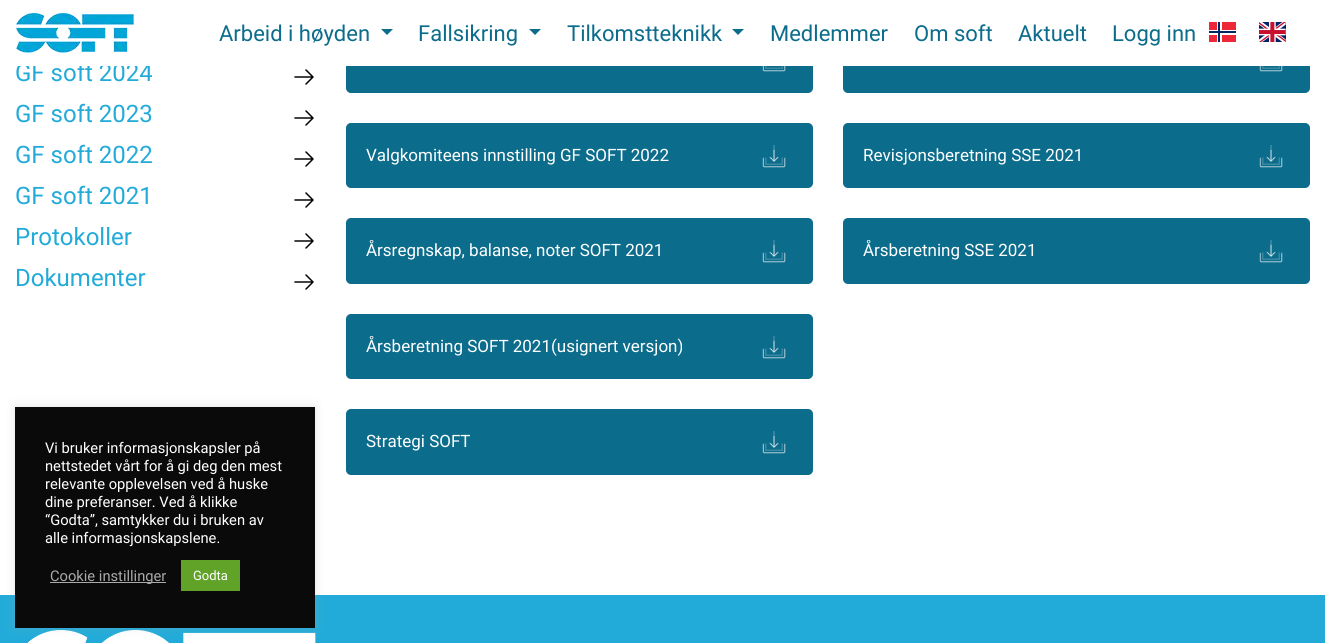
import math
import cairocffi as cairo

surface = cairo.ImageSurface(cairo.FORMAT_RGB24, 1325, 643)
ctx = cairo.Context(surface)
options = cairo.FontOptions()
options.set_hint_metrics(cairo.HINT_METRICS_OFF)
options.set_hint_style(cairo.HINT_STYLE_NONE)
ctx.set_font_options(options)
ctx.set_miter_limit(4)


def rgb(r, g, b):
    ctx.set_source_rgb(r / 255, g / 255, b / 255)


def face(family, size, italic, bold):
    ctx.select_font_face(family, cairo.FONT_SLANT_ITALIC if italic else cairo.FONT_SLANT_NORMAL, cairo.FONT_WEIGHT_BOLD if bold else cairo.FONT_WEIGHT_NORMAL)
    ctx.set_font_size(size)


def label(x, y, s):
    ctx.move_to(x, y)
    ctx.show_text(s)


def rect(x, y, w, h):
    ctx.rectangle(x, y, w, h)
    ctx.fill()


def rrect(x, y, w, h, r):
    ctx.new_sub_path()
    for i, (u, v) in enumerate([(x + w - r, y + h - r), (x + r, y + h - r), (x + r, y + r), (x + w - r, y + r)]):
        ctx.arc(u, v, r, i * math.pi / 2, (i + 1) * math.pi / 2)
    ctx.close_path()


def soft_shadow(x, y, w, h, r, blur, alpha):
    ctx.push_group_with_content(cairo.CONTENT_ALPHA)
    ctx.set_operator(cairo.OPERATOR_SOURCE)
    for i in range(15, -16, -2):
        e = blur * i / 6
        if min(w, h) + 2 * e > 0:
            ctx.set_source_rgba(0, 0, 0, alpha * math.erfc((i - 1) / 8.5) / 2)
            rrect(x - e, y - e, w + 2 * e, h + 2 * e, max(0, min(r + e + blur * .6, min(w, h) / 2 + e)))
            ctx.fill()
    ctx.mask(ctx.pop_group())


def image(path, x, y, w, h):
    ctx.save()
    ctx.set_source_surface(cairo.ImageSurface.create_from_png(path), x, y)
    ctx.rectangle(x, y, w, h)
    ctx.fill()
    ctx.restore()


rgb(255, 255, 255)
ctx.paint()
face('Roboto', 24, 0, 0)
rgb(34, 171, 217)
label(15, 81, 'GF soft 2024')
rgb(11, 108, 140)
rrect(346, 27, 467, 66, 5)
ctx.fill()
rrect(843, 27, 467, 66, 5)
ctx.fill()
rgb(255, 255, 255)
rect(18, 27, 1292, 39)
image('image0.png', 16, 13, 118, 40)
face('Roboto', 22, 0, 0)
rgb(11, 108, 140)
label(219, 41, 'Arbeid i høyden')
ctx.new_path()
ctx.move_to(381, 29)
ctx.line_to(393, 29)
ctx.line_to(387, 35)
ctx.close_path()
ctx.fill()
label(418, 41, 'Fallsikring')
ctx.new_path()
ctx.move_to(529, 29)
ctx.line_to(541, 29)
ctx.line_to(535, 35)
ctx.close_path()
ctx.fill()
label(567, 41, 'Tilkomstteknikk')
ctx.new_path()
ctx.move_to(732, 29)
ctx.line_to(744, 29)
ctx.line_to(738, 35)
ctx.close_path()
ctx.fill()
label(770, 41, 'Medlemmer')
label(914, 41, 'Om soft')
label(1018, 41, 'Aktuelt')
label(1112, 41, 'Logg inn')
rgb(237, 41, 57)
rect(1209, 22, 27, 20)
rgb(255, 255, 255)
rect(1217, 22, 5, 20)
rect(1209, 30, 27, 5)
rgb(0, 38, 100)
rect(1218, 22, 2, 20)
rect(1209, 31, 27, 2)
image('image1.png', 1259, 22, 27, 20)
ctx.new_path()
ctx.move_to(295, 77)
ctx.line_to(313, 77)
ctx.move_to(313, 77)
ctx.line_to(306, 70)
ctx.move_to(313, 77)
ctx.line_to(306, 84)
rgb(0, 0, 0)
ctx.set_line_width(1.5)
ctx.set_line_cap(cairo.LINE_CAP_ROUND)
ctx.set_line_join(cairo.LINE_JOIN_ROUND)
ctx.stroke()
face('Roboto', 24, 0, 0)
rgb(34, 171, 217)
label(15, 122, 'GF soft 2023')
ctx.new_path()
ctx.move_to(295, 118)
ctx.line_to(313, 118)
ctx.move_to(313, 118)
ctx.line_to(306, 111)
ctx.move_to(313, 118)
ctx.line_to(306, 125)
rgb(0, 0, 0)
ctx.stroke()
rgb(34, 171, 217)
label(15, 163, 'GF soft 2022')
ctx.new_path()
ctx.move_to(295, 159)
ctx.line_to(313, 159)
ctx.move_to(313, 159)
ctx.line_to(306, 152)
ctx.move_to(313, 159)
ctx.line_to(306, 166)
rgb(0, 0, 0)
ctx.stroke()
rgb(34, 171, 217)
label(15, 204, 'GF soft 2021')
ctx.new_path()
ctx.move_to(295, 200)
ctx.line_to(313, 200)
ctx.move_to(313, 200)
ctx.line_to(306, 193)
ctx.move_to(313, 200)
ctx.line_to(306, 207)
rgb(0, 0, 0)
ctx.stroke()
rgb(34, 171, 217)
label(15, 245, 'Protokoller')
ctx.new_path()
ctx.move_to(295, 241)
ctx.line_to(313, 241)
ctx.move_to(313, 241)
ctx.line_to(306, 234)
ctx.move_to(313, 241)
ctx.line_to(306, 248)
rgb(0, 0, 0)
ctx.stroke()
rgb(34, 171, 217)
label(15, 286, 'Dokumenter')
ctx.new_path()
ctx.move_to(295, 282)
ctx.line_to(313, 282)
ctx.move_to(313, 282)
ctx.line_to(306, 275)
ctx.move_to(313, 282)
ctx.line_to(306, 289)
rgb(0, 0, 0)
ctx.stroke()
image('image2.png', 762, 66, 24, 6)
rgb(11, 108, 140)
rrect(346, 123, 467, 65, 5)
ctx.fill()
face('Roboto', 17, 0, 0)
rgb(255, 255, 255)
label(366, 161, 'Valgkomiteens innstilling GF SOFT 2022')
image('image3.png', 762, 145, 24, 23)
rgb(11, 108, 140)
rrect(346, 218, 467, 66, 5)
ctx.fill()
rgb(255, 255, 255)
label(366, 256, 'Årsregnskap, balanse, noter SOFT 2021')
image('image3.png', 762, 240, 24, 23)
rgb(11, 108, 140)
rrect(346, 314, 467, 65, 5)
ctx.fill()
rgb(255, 255, 255)
label(366, 352, 'Årsberetning SOFT 2021(usignert versjon)')
image('image3.png', 762, 336, 24, 23)
rgb(11, 108, 140)
rrect(346, 409, 467, 66, 5)
ctx.fill()
rgb(255, 255, 255)
label(366, 447, 'Strategi SOFT')
image('image3.png', 762, 431, 24, 23)
image('image4.png', 1259, 66, 24, 6)
rgb(11, 108, 140)
rrect(843, 123, 467, 65, 5)
ctx.fill()
rgb(255, 255, 255)
label(863, 161, 'Revisjonsberetning SSE 2021')
image('image5.png', 1259, 145, 24, 23)
rgb(11, 108, 140)
rrect(843, 218, 467, 66, 5)
ctx.fill()
rgb(255, 255, 255)
label(863, 256, 'Årsberetning SSE 2021')
image('image5.png', 1259, 240, 24, 23)
rgb(34, 171, 217)
rect(0, 595, 1325, 48)
image('image6.png', 27, 630, 289, 13)
rgb(172, 171, 171)
soft_shadow(15, 406, 300, 221, 0, 5, 0.3)
rgb(10, 10, 10)
rect(15, 407, 300, 221)
face('Roboto', 14.7, 0, 0)
rgb(255, 255, 255)
label(45, 453, 'Vi bruker informasjonskapsler på')
label(45, 471, 'nettstedet vårt for å gi deg den mest')
label(45, 489, 'relevante opplevelsen ved å huske')
label(45, 507, 'dine preferanser. Ved å klikke')
label(45, 525, '“Godta”, samtykker du i bruken av')
label(45, 543, 'alle informasjonskapslene.')
rgb(170, 170, 170)
rect(50, 582, 116, 1)
label(50, 581, 'Cookie instillinger')
rgb(97, 162, 41)
rect(181, 560, 59, 31)
face('Roboto', 13, 0, 0)
rgb(255, 255, 255)
label(193, 580, 'Godta')
surface.write_to_png('render.png')
